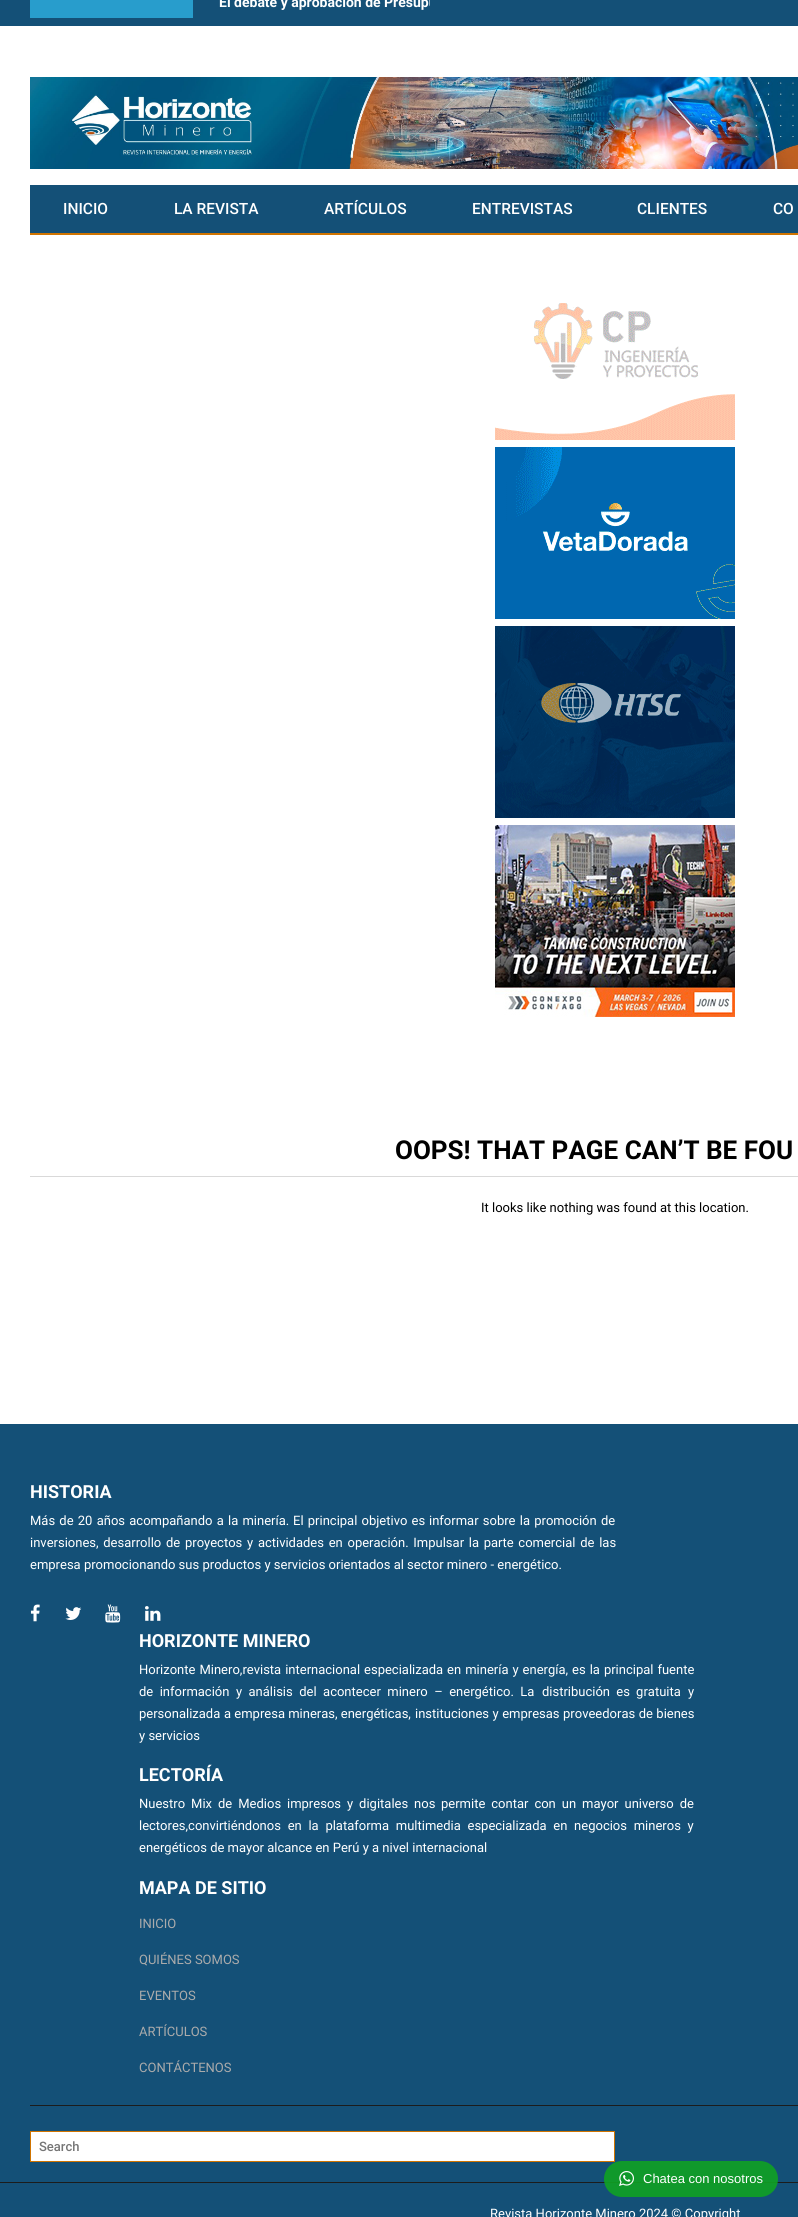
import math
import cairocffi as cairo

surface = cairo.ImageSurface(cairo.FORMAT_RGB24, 798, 2217)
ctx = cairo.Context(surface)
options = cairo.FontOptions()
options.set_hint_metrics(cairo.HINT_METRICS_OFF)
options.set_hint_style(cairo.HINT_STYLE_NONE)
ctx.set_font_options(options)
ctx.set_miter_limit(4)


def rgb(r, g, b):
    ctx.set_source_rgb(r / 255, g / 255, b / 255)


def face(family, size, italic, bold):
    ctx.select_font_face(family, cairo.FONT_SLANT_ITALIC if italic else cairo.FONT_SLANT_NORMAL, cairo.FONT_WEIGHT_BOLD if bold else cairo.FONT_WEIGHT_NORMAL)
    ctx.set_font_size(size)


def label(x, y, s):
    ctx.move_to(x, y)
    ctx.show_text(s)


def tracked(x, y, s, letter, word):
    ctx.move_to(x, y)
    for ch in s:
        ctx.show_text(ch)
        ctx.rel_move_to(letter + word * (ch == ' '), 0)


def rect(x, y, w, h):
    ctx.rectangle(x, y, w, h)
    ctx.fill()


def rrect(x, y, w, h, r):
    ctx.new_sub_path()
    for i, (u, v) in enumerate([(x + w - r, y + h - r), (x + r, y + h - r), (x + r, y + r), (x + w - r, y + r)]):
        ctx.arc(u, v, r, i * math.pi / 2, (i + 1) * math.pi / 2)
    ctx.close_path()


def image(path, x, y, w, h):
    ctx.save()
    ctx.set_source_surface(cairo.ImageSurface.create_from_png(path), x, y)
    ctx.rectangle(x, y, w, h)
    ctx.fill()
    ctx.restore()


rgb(20, 80, 119)
ctx.paint()
rgb(40, 157, 204)
rect(30, 0, 163, 18)
ctx.save()
ctx.rectangle(193, 0, 237, 26)
ctx.clip()
face('Roboto', 14, 0, 1)
rgb(255, 255, 255)
label(219, 7, 'El debate y aprobación de Presupu')
ctx.restore()
rgb(255, 255, 255)
rect(0, 26, 798, 1398)
image('image0.png', 30, 77, 768, 92)
rgb(20, 80, 119)
rect(30, 185, 768, 48)
rgb(208, 116, 0)
rect(30, 233, 768, 2)
face('Roboto Medium', 15.5, 0, 0)
rgb(255, 255, 255)
label(63, 214, 'INICIO')
label(174, 214, 'LA REVISTA')
label(324, 214, 'ARTÍCULOS')
label(472, 214, 'ENTREVISTAS')
label(637, 214, 'CLIENTES')
label(773, 214, 'CO')
image('image1.png', 495, 303, 240, 137)
image('image2.png', 495, 447, 240, 172)
image('image3.png', 495, 626, 240, 192)
image('image4.png', 495, 825, 240, 192)
rgb(217, 217, 217)
rect(30, 1176, 768, 1)
face('Roboto', 26, 0, 1)
rgb(0, 0, 0)
label(395, 1159, 'OOPS! THAT PAGE CAN’T BE FOU')
face('Roboto', 13, 0, 0)
label(481, 1212, 'It looks like nothing was found at this location.')
face('Roboto', 18, 0, 1)
rgb(255, 255, 255)
label(30, 1498, 'HISTORIA')
face('Roboto', 13, 0, 0)
tracked(30, 1525, 'Más de 20 años acompañando a la minería.', 0, 1)
tracked(293, 1525, 'El principal objetivo es', 0, 1)
tracked(429, 1525, 'informar sobre la promoción de', 0, 1)
tracked(30, 1547, 'inversiones, desarrollo de proyectos', 0, 1.5)
tracked(247, 1547, 'y actividades en operación. Impulsar la parte comercial de las', 0, 1.5)
label(30, 1569, 'empresa promocionando sus productos y servicios orientados al sector minero - energético.')
image('image5.png', 30, 1604, 10, 18)
image('image6.png', 65, 1607, 17, 13)
image('image7.png', 105, 1604, 16, 19)
image('image8.png', 145, 1606, 16, 15)
face('Roboto', 18, 0, 1)
label(139, 1647, 'HORIZONTE MINERO')
face('Roboto', 13, 0, 0)
tracked(139, 1674, 'Horizonte Minero,revista internacional especializada en minería y energía, es la principal fuente', 0, 0.75)
tracked(139, 1696, 'de información y análisis del acontecer minero – energético. La', 0, 3.25)
tracked(542, 1696, 'distribución es gratuita', 0, 3)
label(688, 1696, 'y')
label(139, 1718, 'personalizada')
label(224, 1718, 'a empresa mineras, energéticas,')
tracked(415, 1718, 'instituciones y empresas proveedoras de bienes', 0, 0.25)
label(139, 1740, 'y servicios')
face('Roboto', 18, 0, 1)
label(139, 1781, 'LECTORÍA')
face('Roboto', 13, 0, 0)
tracked(139, 1808, 'Nuestro Mix de Medios', 0, 2.75)
tracked(287, 1808, 'impresos y digitales nos', 0, 2.75)
tracked(441, 1808, 'permite contar con un mayor universo de', 0, 2.75)
tracked(139, 1830, 'lectores,convirtiéndonos en la plataforma multimedia especializada en negocios mineros y', 0, 3.5)
label(139, 1852, 'energéticos de mayor alcance en Perú y a nivel internacional')
face('Roboto', 18, 0, 1)
label(139, 1894, 'MAPA DE SITIO')
face('Roboto', 13, 0, 0)
rgb(171, 171, 171)
label(139, 1928, 'INICIO')
label(139, 1964, 'QUIÉNES SOMOS')
label(139, 2000, 'EVENTOS')
label(139, 2036, 'ARTÍCULOS')
label(139, 2072, 'CONTÁCTENOS')
rgb(28, 28, 28)
rect(30, 2105, 768, 1)
rgb(255, 255, 255)
ctx.rectangle(30.5, 2131.5, 584, 30)
ctx.fill_preserve()
rgb(208, 116, 0)
ctx.set_line_width(1)
ctx.stroke()
face('Roboto Medium', 13, 0, 0)
rgb(117, 117, 117)
label(39, 2151, 'Search')
rgb(28, 28, 28)
rect(0, 2182, 798, 1)
face('Roboto', 13, 0, 0)
rgb(255, 255, 255)
label(490, 2218, 'Revista Horizonte Minero 2024 © Copyright')
ctx.set_source_rgba(0.063, 0.631, 0.137, 0.9)
rrect(604, 2161, 174, 36, 18)
ctx.fill()
image('image9.png', 619, 2171, 15, 15)
face('Liberation Sans', 13, 0, 0)
rgb(255, 255, 255)
label(643, 2183, 'Chatea con nosotros')
surface.write_to_png('render.png')
